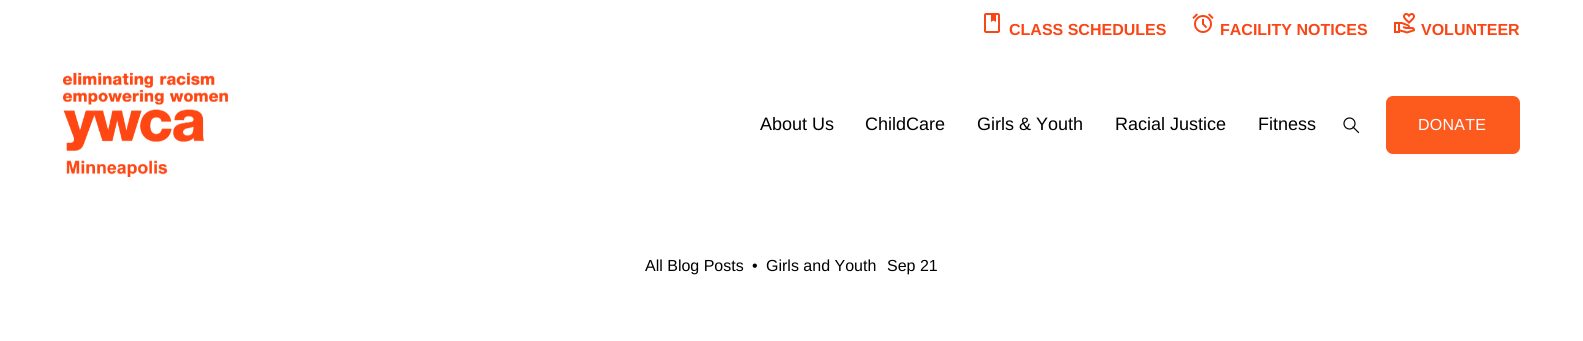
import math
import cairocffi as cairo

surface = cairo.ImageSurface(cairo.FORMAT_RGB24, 1583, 341)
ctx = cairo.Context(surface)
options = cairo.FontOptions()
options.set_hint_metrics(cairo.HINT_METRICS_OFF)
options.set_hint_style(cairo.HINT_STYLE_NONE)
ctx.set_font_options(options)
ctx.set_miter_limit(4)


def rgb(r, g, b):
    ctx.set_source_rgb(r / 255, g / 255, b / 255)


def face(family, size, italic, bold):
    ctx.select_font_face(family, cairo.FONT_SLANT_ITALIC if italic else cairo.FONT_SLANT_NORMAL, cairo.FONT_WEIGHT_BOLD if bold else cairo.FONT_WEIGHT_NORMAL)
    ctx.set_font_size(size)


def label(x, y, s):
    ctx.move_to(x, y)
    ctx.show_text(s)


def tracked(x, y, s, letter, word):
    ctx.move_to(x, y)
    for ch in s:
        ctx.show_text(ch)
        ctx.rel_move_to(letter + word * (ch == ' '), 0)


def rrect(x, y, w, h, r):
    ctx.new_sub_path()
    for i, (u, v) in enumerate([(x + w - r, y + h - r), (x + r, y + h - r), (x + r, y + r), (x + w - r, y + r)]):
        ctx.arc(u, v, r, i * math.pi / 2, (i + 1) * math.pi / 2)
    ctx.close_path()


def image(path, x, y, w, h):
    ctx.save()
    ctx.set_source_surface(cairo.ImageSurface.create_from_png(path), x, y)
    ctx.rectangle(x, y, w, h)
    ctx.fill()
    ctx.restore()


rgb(255, 255, 255)
ctx.paint()
image('image0.png', 984, 13, 16, 20)
face('Liberation Sans', 16, 0, 1)
rgb(250, 70, 22)
label(1009, 35, 'CLASS SCHEDULES')
image('image1.png', 1192, 13, 22, 20)
label(1220, 35, 'FACILITY NOTICES')
image('image2.png', 1394, 13, 21, 21)
label(1421, 35, 'VOLUNTEER')
image('image3.png', 63, 72, 165, 105)
face('Liberation Sans', 18, 0, 0)
rgb(0, 0, 0)
label(760, 130, 'About Us')
label(865, 130, 'ChildCare')
label(977, 130, 'Girls & Youth')
label(1115, 130, 'Racial Justice')
label(1258, 130, 'Fitness')
ctx.new_path()
ctx.move_to(1353, 127)
ctx.line_to(1358.5, 132.5)
ctx.set_line_width(1.2)
ctx.set_line_cap(cairo.LINE_CAP_ROUND)
ctx.set_line_join(cairo.LINE_JOIN_ROUND)
ctx.stroke()
ctx.arc(1349.5, 123.5, 5.5, 0, 2 * math.pi)
ctx.set_line_cap(cairo.LINE_CAP_BUTT)
ctx.set_line_join(cairo.LINE_JOIN_MITER)
ctx.stroke()
rgb(253, 90, 30)
rrect(1386, 96, 134, 58, 7)
ctx.fill()
face('Liberation Sans', 16, 0, 0)
rgb(255, 255, 255)
tracked(1418, 130, 'DONATE', 0.25, 0)
rgb(0, 0, 0)
label(645, 271, 'All Blog Posts')
label(752, 271, '•')
label(766, 271, 'Girls and Youth')
label(887, 271, 'Sep 21')
surface.write_to_png('render.png')
